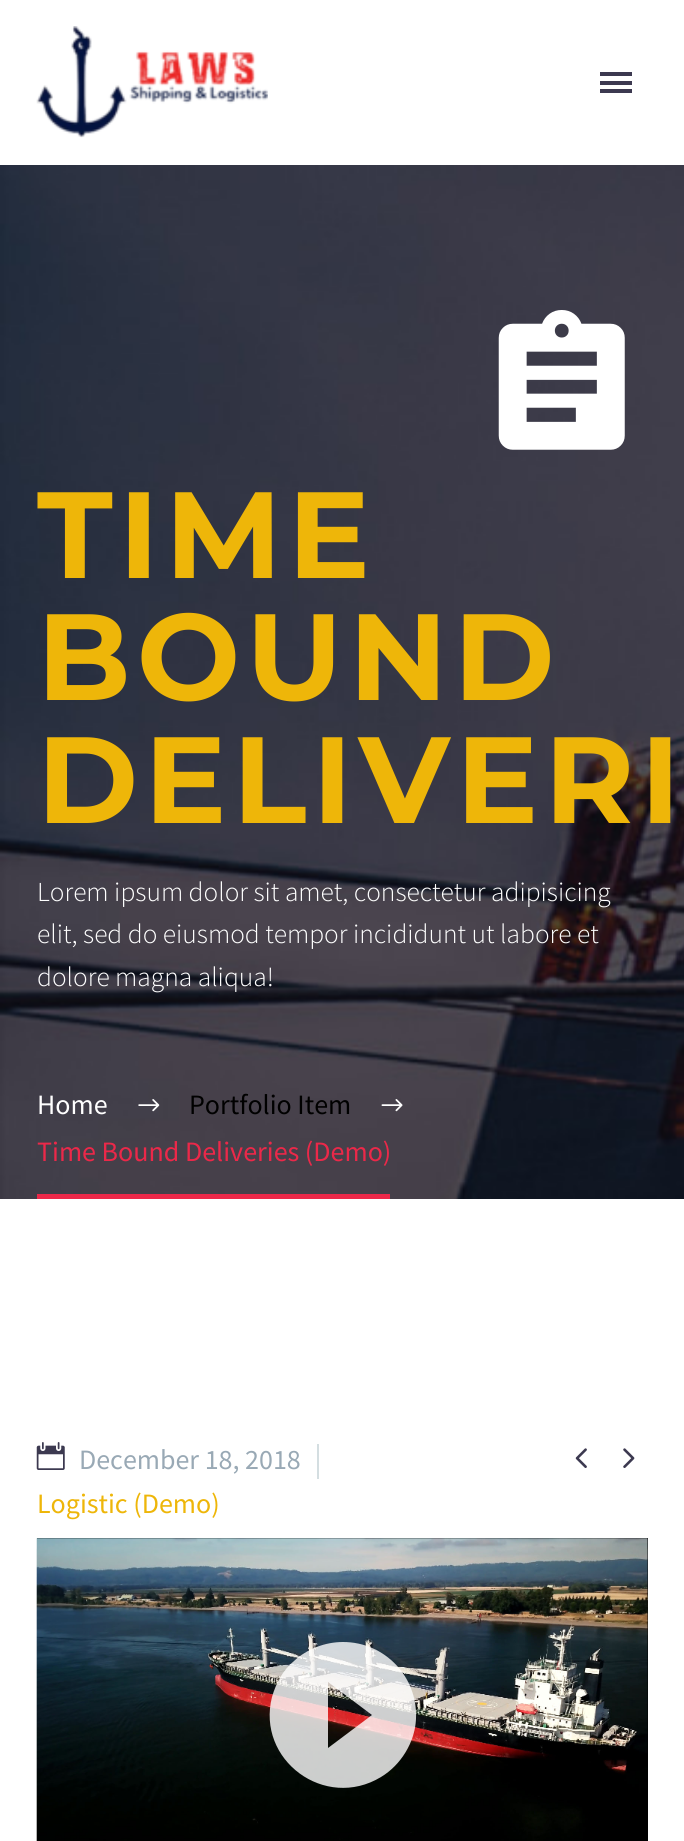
import math
import cairocffi as cairo

surface = cairo.ImageSurface(cairo.FORMAT_RGB24, 684, 1841)
ctx = cairo.Context(surface)
options = cairo.FontOptions()
options.set_hint_metrics(cairo.HINT_METRICS_OFF)
options.set_hint_style(cairo.HINT_STYLE_NONE)
ctx.set_font_options(options)
ctx.set_miter_limit(4)


def rgb(r, g, b):
    ctx.set_source_rgb(r / 255, g / 255, b / 255)


def face(family, size, italic, bold):
    ctx.select_font_face(family, cairo.FONT_SLANT_ITALIC if italic else cairo.FONT_SLANT_NORMAL, cairo.FONT_WEIGHT_BOLD if bold else cairo.FONT_WEIGHT_NORMAL)
    ctx.set_font_size(size)


def label(x, y, s):
    ctx.move_to(x, y)
    ctx.show_text(s)


def tracked(x, y, s, letter, word):
    ctx.move_to(x, y)
    for ch in s:
        ctx.show_text(ch)
        ctx.rel_move_to(letter + word * (ch == ' '), 0)


def rect(x, y, w, h):
    ctx.rectangle(x, y, w, h)
    ctx.fill()


def image(path, x, y, w, h):
    ctx.save()
    ctx.set_source_surface(cairo.ImageSurface.create_from_png(path), x, y)
    ctx.rectangle(x, y, w, h)
    ctx.fill()
    ctx.restore()


rgb(255, 255, 255)
ctx.paint()
image('image0.png', 36, 26, 232, 112)
rgb(60, 57, 80)
rect(600, 72, 32, 4)
rect(600, 81, 32, 4)
rect(600, 89, 32, 4)
image('image1.png', 0, 165, 684, 1034)
image('image2.png', 498, 310, 64, 140)
image('image3.png', 562, 310, 63, 140)
face('Montserrat', 122.5, 0, 1)
rgb(238, 182, 9)
tracked(37, 578, 'TIME', 6, 0)
tracked(37, 700, 'BOUND', 6, 0)
tracked(37, 823, 'DELIVERI', 6, 0)
face('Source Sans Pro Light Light', 27.4, 0, 0)
rgb(255, 255, 255)
label(37, 901, 'Lorem ipsum dolor sit amet, consectetur adipisicing')
label(37, 943, 'elit, sed do eiusmod tempor incididunt ut labore et')
label(37, 986, 'dolore magna aliqua!')
face('Source Sans Pro', 28, 0, 0)
label(37, 1114, 'Home')
image('image4.png', 138, 1099, 22, 13)
rgb(0, 0, 0)
label(189, 1114, 'Portfolio Item')
image('image5.png', 381, 1099, 22, 13)
rgb(236, 40, 73)
rect(37, 1194, 353, 5)
label(37, 1161, 'Time Bound Deliveries (Demo)')
image('image6.png', 36, 1442, 29, 28)
rgb(153, 169, 181)
label(79, 1469, 'December 18, 2018')
rgb(212, 222, 225)
rect(317, 1444, 2, 35)
rgb(238, 182, 9)
label(37, 1513, 'Logistic (Demo)')
image('image7.png', 575, 1448, 12, 20)
image('image8.png', 623, 1448, 12, 20)
rgb(0, 0, 0)
rect(37, 1538, 611, 303)
image('image10.png', 36, 1548, 612, 293)
image('image9.png', 36, 1538, 612, 303)
ctx.set_source_rgba(1, 1, 1, 0.8)
ctx.new_path()
ctx.move_to(328, 1748)
ctx.line_to(328, 1682)
ctx.line_to(372, 1715)
ctx.close_path()
ctx.move_to(343, 1642)
ctx.curve_to(325, 1642, 307, 1649, 294, 1661)
ctx.curve_to(283, 1670, 276, 1683, 272, 1697)
ctx.curve_to(256, 1760, 325, 1811, 381, 1777)
ctx.curve_to(401, 1765, 415, 1742, 416, 1719)
ctx.curve_to(418, 1677, 385, 1642, 343, 1642)
ctx.close_path()
ctx.fill()
surface.write_to_png('render.png')
